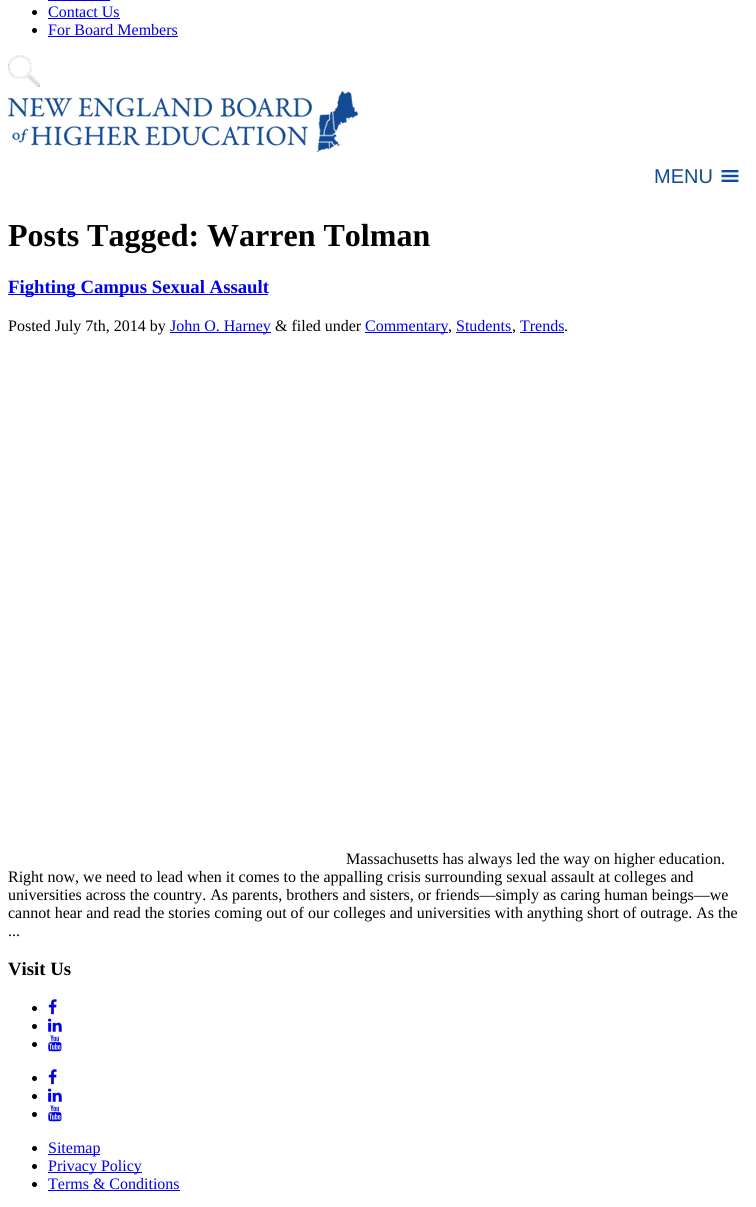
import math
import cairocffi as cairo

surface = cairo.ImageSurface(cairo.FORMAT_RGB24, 756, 1207)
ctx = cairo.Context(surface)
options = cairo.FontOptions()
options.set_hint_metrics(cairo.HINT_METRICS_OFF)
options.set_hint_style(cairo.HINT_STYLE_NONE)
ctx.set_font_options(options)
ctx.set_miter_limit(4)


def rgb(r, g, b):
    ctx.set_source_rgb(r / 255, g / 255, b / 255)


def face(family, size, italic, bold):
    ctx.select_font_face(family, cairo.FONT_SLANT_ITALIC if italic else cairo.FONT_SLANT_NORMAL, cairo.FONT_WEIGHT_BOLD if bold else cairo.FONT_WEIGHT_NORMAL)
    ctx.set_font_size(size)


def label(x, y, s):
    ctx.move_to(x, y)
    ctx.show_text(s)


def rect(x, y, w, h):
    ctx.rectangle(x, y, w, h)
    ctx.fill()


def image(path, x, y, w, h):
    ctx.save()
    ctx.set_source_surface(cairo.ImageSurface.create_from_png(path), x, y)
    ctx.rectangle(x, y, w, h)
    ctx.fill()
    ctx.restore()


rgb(255, 255, 255)
ctx.paint()
rgb(0, 0, 238)
rect(48, 0, 62, 1)
rgb(0, 0, 0)
ctx.arc(34.5, 12.5, 2.5, 0, 2 * math.pi)
ctx.fill()
face('Liberation Serif', 16, 0, 0)
rgb(0, 0, 238)
label(48, 17, 'Contact Us')
rect(48, 18, 72, 1)
rgb(0, 0, 0)
ctx.new_path()
ctx.arc(34.5, 30.5, 2.5, 0, 2 * math.pi)
ctx.fill()
rgb(0, 0, 238)
label(48, 35, 'For Board Members')
rect(48, 36, 130, 1)
image('image0.png', 8, 55, 32, 32)
image('image1.png', 8, 91, 350, 61)
face('Liberation Sans', 20, 0, 0)
rgb(18, 75, 148)
label(654, 183, 'MENU')
image('image2.png', 721, 170, 18, 12)
face('Liberation Serif', 32, 0, 1)
rgb(0, 0, 0)
label(8, 246, 'Posts Tagged: Warren Tolman')
rgb(0, 0, 238)
rect(8, 294, 260, 1)
face('Liberation Serif', 18.75, 0, 1)
label(8, 293, 'Fighting Campus Sexual Assault')
face('Liberation Serif', 16, 0, 0)
rgb(0, 0, 0)
label(8, 331, 'Posted July 7th, 2014 by')
rgb(0, 0, 238)
rect(170, 332, 101, 1)
label(170, 331, 'John O. Harney')
rgb(0, 0, 0)
label(275, 331, '& filed under')
rgb(0, 0, 238)
rect(365, 332, 83, 1)
label(365, 331, 'Commentary')
rgb(0, 0, 0)
label(448, 331, ',')
rgb(0, 0, 238)
label(456, 331, 'Students')
rgb(0, 0, 0)
label(512, 331, ',')
rgb(0, 0, 238)
rect(456, 332, 56, 1)
rect(520, 332, 44, 1)
label(520, 331, 'Trends')
rgb(0, 0, 0)
label(564, 331, '.')
label(346, 864, 'Massachusetts has always led the way on higher education.')
label(8, 882, 'Right now, we need to lead when it comes to the appalling crisis surrounding sexual assault at colleges and')
label(8, 900, 'universities across the country. As parents, brothers and sisters, or friends—simply as caring human beings—we')
label(8, 918, 'cannot hear and read the stories coming out of our colleges and universities with anything short of outrage. As the')
label(8, 936, '...')
face('Liberation Serif', 18.75, 0, 1)
label(8, 975, 'Visit Us')
ctx.new_path()
ctx.arc(34.5, 1008.5, 2.5, 0, 2 * math.pi)
ctx.fill()
image('image3.png', 48, 999, 9, 16)
ctx.arc(34.5, 1026.5, 2.5, 0, 2 * math.pi)
ctx.fill()
image('image4.png', 48, 1018, 14, 14)
ctx.arc(34.5, 1044.5, 2.5, 0, 2 * math.pi)
ctx.fill()
image('image5.png', 48, 1035, 14, 17)
ctx.arc(34.5, 1078.5, 2.5, 0, 2 * math.pi)
ctx.fill()
image('image3.png', 48, 1069, 9, 16)
ctx.arc(34.5, 1096.5, 2.5, 0, 2 * math.pi)
ctx.fill()
image('image4.png', 48, 1088, 14, 14)
ctx.arc(34.5, 1114.5, 2.5, 0, 2 * math.pi)
ctx.fill()
image('image5.png', 48, 1105, 14, 17)
ctx.arc(34.5, 1148.5, 2.5, 0, 2 * math.pi)
ctx.fill()
rgb(0, 0, 238)
rect(48, 1154, 52, 1)
face('Liberation Serif', 16, 0, 0)
label(48, 1153, 'Sitemap')
rgb(0, 0, 0)
ctx.new_path()
ctx.arc(34.5, 1166.5, 2.5, 0, 2 * math.pi)
ctx.fill()
rgb(0, 0, 238)
rect(48, 1172, 94, 1)
label(48, 1171, 'Privacy Policy')
rgb(0, 0, 0)
ctx.new_path()
ctx.arc(34.5, 1184.5, 2.5, 0, 2 * math.pi)
ctx.fill()
rgb(0, 0, 238)
label(48, 1189, 'Terms & Conditions')
rect(48, 1190, 132, 1)
surface.write_to_png('render.png')
